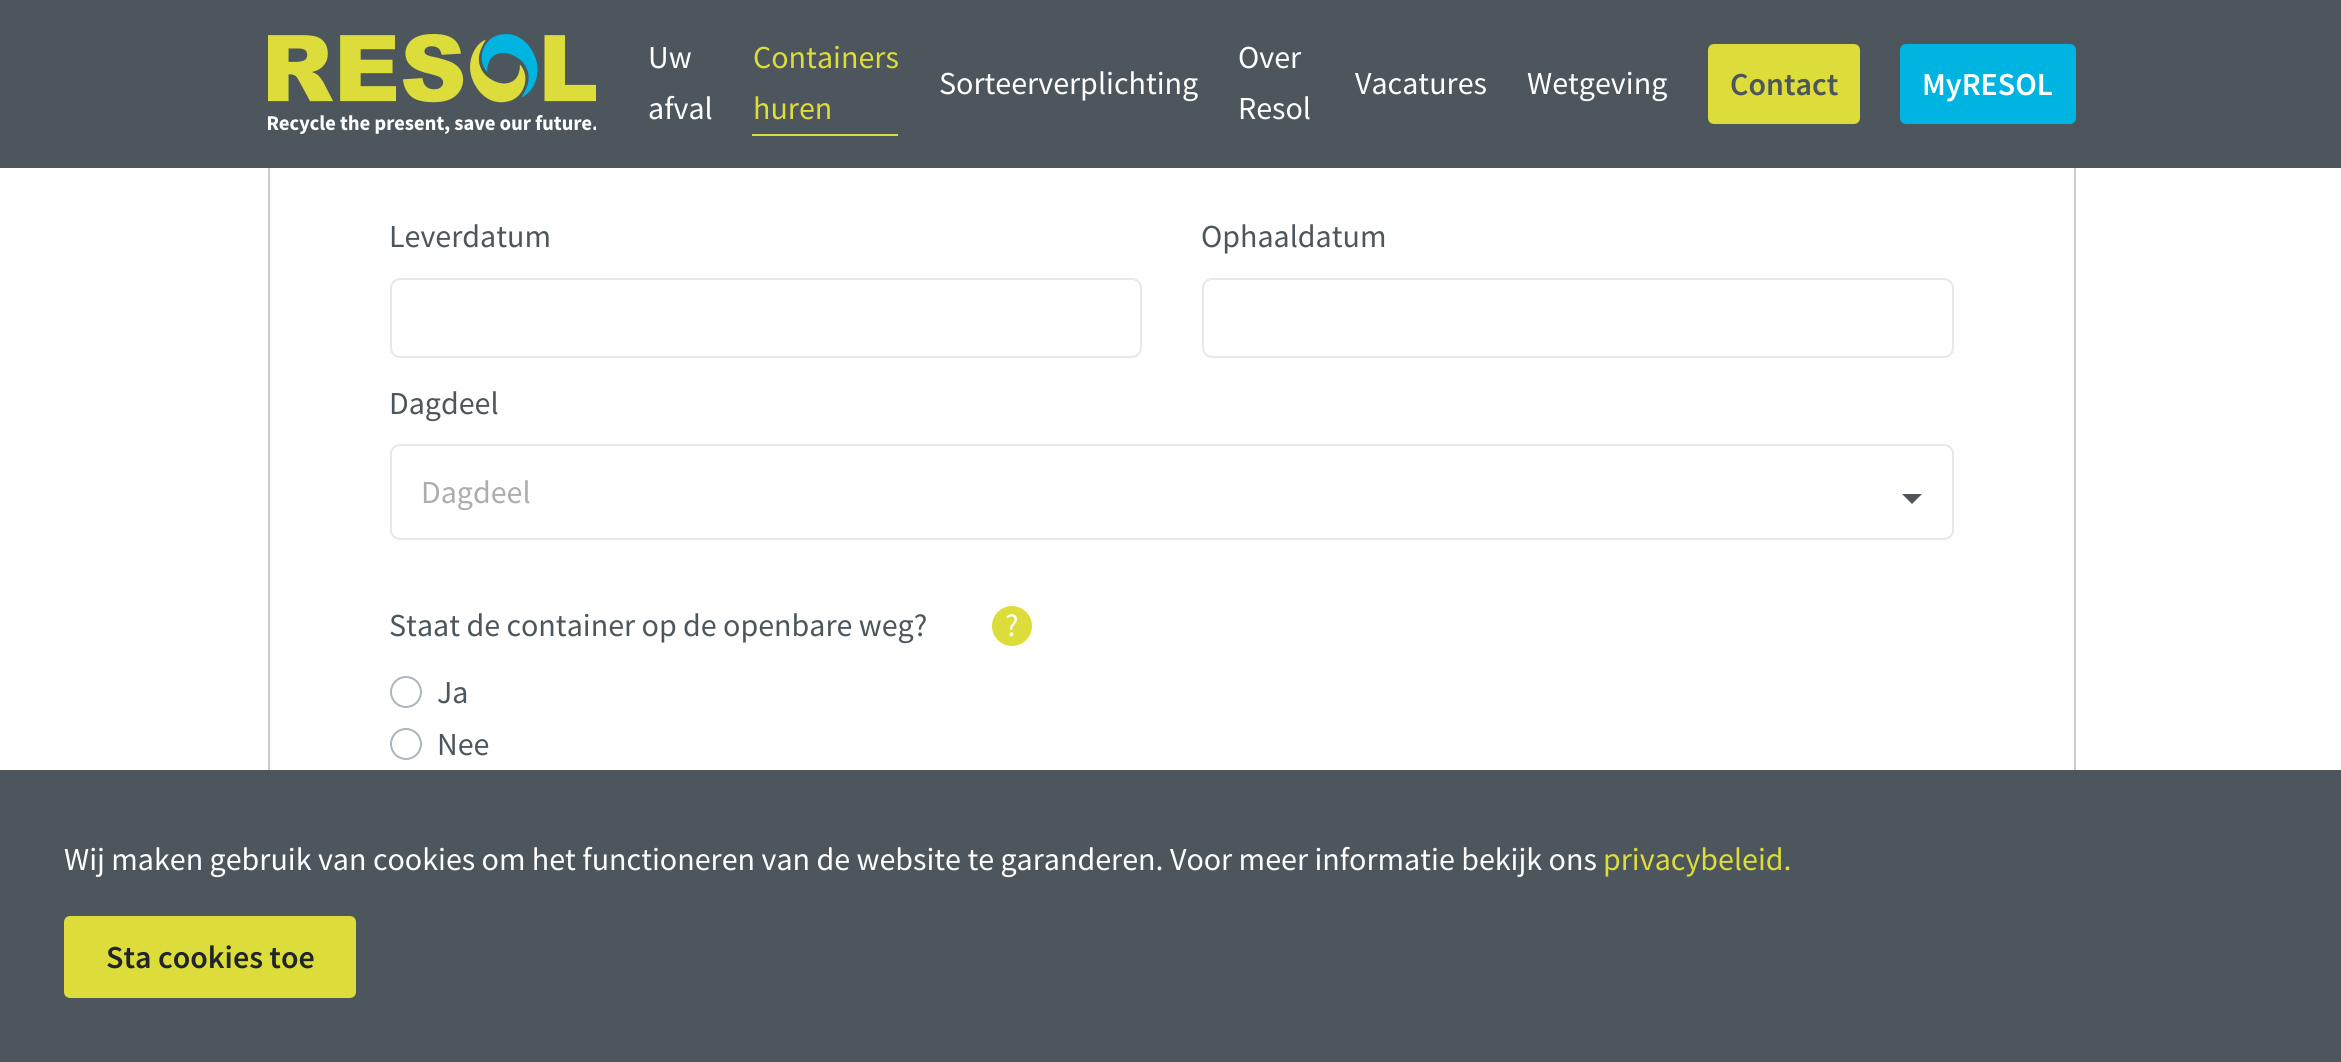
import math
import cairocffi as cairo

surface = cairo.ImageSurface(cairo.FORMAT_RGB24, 2341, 1062)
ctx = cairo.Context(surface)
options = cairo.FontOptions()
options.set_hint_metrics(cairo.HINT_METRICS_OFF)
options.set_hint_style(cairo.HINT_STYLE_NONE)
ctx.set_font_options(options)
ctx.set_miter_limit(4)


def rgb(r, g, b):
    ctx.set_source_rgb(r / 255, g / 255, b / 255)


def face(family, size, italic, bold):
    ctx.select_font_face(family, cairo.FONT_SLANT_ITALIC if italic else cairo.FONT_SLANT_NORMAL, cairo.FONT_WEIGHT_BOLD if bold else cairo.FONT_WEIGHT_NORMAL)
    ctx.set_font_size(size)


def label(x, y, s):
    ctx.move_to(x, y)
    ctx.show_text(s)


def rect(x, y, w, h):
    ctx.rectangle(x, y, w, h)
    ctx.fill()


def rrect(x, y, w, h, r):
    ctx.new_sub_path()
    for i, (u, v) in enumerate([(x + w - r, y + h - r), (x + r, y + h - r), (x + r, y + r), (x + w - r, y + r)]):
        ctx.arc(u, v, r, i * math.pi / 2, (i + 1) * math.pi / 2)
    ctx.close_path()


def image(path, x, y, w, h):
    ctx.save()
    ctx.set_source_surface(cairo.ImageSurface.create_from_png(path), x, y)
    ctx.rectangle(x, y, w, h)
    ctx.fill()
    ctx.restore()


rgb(255, 255, 255)
ctx.paint()
ctx.rectangle(269, -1, 1806, 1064)
rgb(199, 204, 208)
ctx.stroke()
rgb(76, 86, 92)
rect(0, 0, 2341, 168)
image('image0.png', 268, 34, 328, 100)
face('Source Sans Pro', 32, 0, 0)
rgb(255, 255, 255)
label(648, 68, 'Uw')
label(648, 119, 'afval')
rgb(220, 221, 58)
label(753, 68, 'Containers')
label(753, 119, 'huren')
rect(752, 134, 146, 2)
rgb(255, 255, 255)
label(939, 94, 'Sorteerverplichting')
label(1238, 68, 'Over')
label(1238, 119, 'Resol')
label(1355, 94, 'Vacatures')
label(1527, 94, 'Wetgeving')
rgb(220, 221, 58)
rrect(1709, 45, 150, 78, 5)
ctx.fill_preserve()
ctx.stroke()
face('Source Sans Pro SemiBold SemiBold', 32, 0, 0)
rgb(76, 86, 92)
label(1730, 95, 'Contact')
rgb(0, 180, 225)
rrect(1901, 45, 174, 78, 5)
ctx.fill_preserve()
ctx.stroke()
rgb(255, 255, 255)
label(1922, 95, 'MyRESOL')
face('Source Sans Pro', 32, 0, 0)
rgb(76, 86, 92)
label(389, 247, 'Leverdatum')
rrect(391, 279, 750, 78, 9)
rgb(232, 232, 232)
ctx.stroke()
rgb(76, 86, 92)
label(1201, 247, 'Ophaaldatum')
rrect(1203, 279, 750, 78, 9)
rgb(232, 232, 232)
ctx.stroke()
rgb(76, 86, 92)
label(389, 414, 'Dagdeel')
rrect(391, 445, 1562, 94, 9)
rgb(232, 232, 232)
ctx.stroke()
rgb(173, 173, 173)
label(421, 503, 'Dagdeel')
rgb(76, 86, 92)
ctx.new_path()
ctx.move_to(1902, 494)
ctx.line_to(1922, 494)
ctx.line_to(1912, 504)
ctx.close_path()
ctx.fill()
label(389, 636, 'Staat de container op de openbare weg?')
rgb(220, 221, 58)
ctx.new_path()
ctx.arc(1012, 626, 20, 0, 2 * math.pi)
ctx.fill()
rgb(255, 255, 255)
label(1005, 636, '?')
ctx.new_path()
ctx.arc(406, 692, 15, 0, 2 * math.pi)
rgb(173, 181, 189)
ctx.stroke()
rgb(76, 86, 92)
label(437, 703, 'Ja')
ctx.new_path()
ctx.arc(406, 744, 15, 0, 2 * math.pi)
rgb(173, 181, 189)
ctx.stroke()
rgb(76, 86, 92)
label(437, 755, 'Nee')
rect(0, 770, 2341, 292)
rgb(255, 255, 255)
label(64, 870, 'Wij maken gebruik van cookies om het functioneren van de website te garanderen. Voor meer informatie bekijk ons')
rgb(220, 221, 58)
label(1603, 870, 'privacybeleid.')
rrect(65, 917, 290, 80, 5)
ctx.fill_preserve()
ctx.stroke()
face('Source Sans Pro SemiBold SemiBold', 32, 0, 0)
rgb(33, 37, 41)
label(106, 968, 'Sta cookies toe')
surface.write_to_png('render.png')
